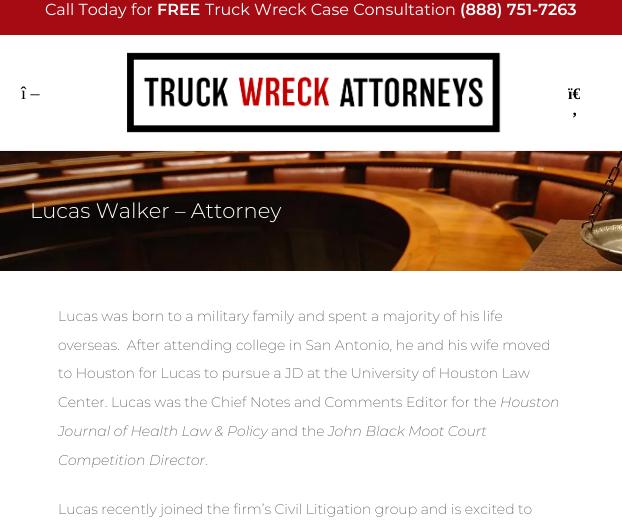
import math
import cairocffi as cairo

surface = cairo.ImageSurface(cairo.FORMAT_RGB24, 622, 526)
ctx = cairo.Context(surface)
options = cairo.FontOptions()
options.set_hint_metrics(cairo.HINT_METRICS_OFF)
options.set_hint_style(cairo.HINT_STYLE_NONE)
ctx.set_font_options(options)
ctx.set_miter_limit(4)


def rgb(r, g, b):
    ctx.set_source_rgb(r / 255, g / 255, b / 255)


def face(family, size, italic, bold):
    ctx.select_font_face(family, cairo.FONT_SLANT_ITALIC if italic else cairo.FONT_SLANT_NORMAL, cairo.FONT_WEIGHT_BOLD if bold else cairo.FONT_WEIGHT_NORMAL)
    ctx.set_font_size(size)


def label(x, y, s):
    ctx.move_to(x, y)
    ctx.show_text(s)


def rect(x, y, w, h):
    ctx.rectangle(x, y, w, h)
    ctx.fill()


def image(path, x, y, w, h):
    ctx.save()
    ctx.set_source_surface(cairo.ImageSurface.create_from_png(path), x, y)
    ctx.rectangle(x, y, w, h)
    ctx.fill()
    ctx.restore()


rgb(255, 255, 255)
ctx.paint()
rgb(241, 241, 241)
rect(0, 150, 622, 1)
rgb(164, 11, 19)
rect(0, 0, 622, 35)
face('Montserrat', 16, 0, 0)
rgb(255, 255, 255)
label(45, 15, 'Call Today for')
face('Montserrat SemiBold', 16, 0, 0)
label(157, 15, 'FREE')
face('Montserrat', 16, 0, 0)
label(205, 15, 'Truck Wreck Case Consultation')
face('Montserrat SemiBold', 16, 0, 0)
label(460, 15, '(888) 751-7263')
face('Liberation Serif', 18, 0, 0)
rgb(0, 0, 0)
label(21, 99, 'î –')
image('image0.png', 127, 52, 374, 81)
face('Liberation Serif', 16, 0, 1)
label(568, 99, 'ï€')
label(572, 115, '‚')
image('image1.png', 0, 151, 622, 120)
face('Montserrat Light', 21, 0, 0)
rgb(255, 255, 255)
label(30, 218, 'Lucas Walker – Attorney')
face('Montserrat ExtraLight', 14, 0, 0)
rgb(74, 74, 74)
label(58, 321, 'Lucas was born to a military family and spent a majority of his life')
label(58, 350, 'overseas.  After attending college in San Antonio, he and his wife moved')
label(58, 378, 'to Houston for Lucas to pursue a JD at the University of Houston Law')
label(58, 407, 'Center. Lucas was the Chief Notes and Comments Editor for the')
face('Montserrat ExtraLight', 14, 1, 0)
label(500, 407, 'Houston')
label(58, 436, 'Journal of Health Law & Policy')
face('Montserrat ExtraLight', 14, 0, 0)
label(271, 436, 'and the')
face('Montserrat ExtraLight', 14, 1, 0)
label(328, 436, 'John Black Moot Court')
label(58, 465, 'Competition Director')
face('Montserrat ExtraLight', 14, 0, 0)
label(205, 465, '.')
label(58, 514, 'Lucas recently joined the firm’s Civil Litigation group and is excited to')
surface.write_to_png('render.png')
